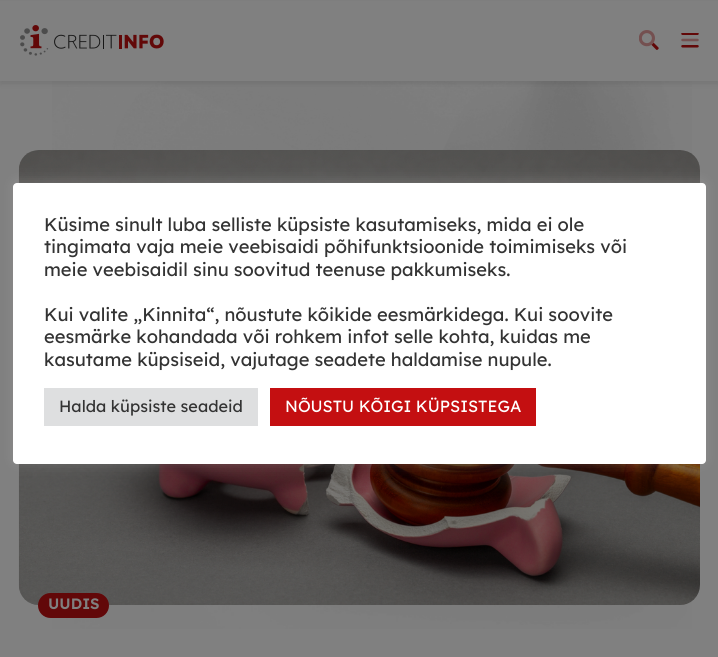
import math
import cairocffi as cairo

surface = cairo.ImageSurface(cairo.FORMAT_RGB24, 718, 657)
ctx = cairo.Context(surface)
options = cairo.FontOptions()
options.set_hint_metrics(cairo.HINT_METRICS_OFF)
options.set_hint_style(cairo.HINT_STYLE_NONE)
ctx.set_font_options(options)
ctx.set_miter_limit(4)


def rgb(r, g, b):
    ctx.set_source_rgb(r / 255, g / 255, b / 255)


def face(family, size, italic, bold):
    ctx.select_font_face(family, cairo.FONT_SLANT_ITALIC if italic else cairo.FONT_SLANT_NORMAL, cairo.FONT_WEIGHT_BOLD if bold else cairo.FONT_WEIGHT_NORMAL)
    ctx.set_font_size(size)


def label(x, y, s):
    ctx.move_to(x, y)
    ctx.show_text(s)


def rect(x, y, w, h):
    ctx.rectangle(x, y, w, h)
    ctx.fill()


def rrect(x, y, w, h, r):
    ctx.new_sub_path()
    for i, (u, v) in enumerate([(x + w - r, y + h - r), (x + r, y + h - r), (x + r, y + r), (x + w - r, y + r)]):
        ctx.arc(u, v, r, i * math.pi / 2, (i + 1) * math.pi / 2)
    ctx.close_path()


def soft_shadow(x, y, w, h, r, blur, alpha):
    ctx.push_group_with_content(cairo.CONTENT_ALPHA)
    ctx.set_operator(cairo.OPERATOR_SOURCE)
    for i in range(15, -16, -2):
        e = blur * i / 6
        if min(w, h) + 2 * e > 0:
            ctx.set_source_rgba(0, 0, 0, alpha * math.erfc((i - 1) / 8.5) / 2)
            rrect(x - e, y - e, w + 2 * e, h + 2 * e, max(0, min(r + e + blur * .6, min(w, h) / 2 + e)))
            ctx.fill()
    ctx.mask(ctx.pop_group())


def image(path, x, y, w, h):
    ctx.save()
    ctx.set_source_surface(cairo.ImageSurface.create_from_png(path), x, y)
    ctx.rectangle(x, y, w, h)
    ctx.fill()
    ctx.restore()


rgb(128, 128, 128)
ctx.paint()
image('image3.png', 52, 81, 640, 548)
rgb(23, 23, 23)
soft_shadow(0, 3, 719, 81, 0, 2.5, 0.1)
rgb(128, 128, 128)
rect(0, 1, 718, 80)
image('image0.png', 20, 25, 144, 31)
image('image1.png', 639, 30, 20, 20)
image('image2.png', 681, 33, 18, 15)
image('image4.png', 18, 150, 682, 455)
rgb(172, 171, 171)
soft_shadow(13, 181, 693, 282, 4, 6, 0.3)
rgb(255, 255, 255)
rrect(13, 183, 693, 281, 4)
ctx.fill()
face('Lexend', 18.3, 0, 0)
rgb(51, 51, 51)
label(44, 231, 'Küsime sinult luba selliste küpsiste kasutamiseks, mida ei ole')
label(44, 253, 'tingimata vaja meie veebisaidi põhifunktsioonide toimimiseks või')
label(44, 276, 'meie veebisaidil sinu soovitud teenuse pakkumiseks.')
label(44, 321, 'Kui valite „Kinnita“, nõustute kõikide eesmärkidega. Kui soovite')
label(44, 343, 'eesmärke kohandada või rohkem infot selle kohta, kuidas me')
label(44, 366, 'kasutame küpsiseid, vajutage seadete haldamise nupule.')
rgb(222, 223, 224)
rect(44, 388, 214, 38)
face('Lexend', 16.25, 0, 0)
rgb(51, 51, 51)
label(59, 412, 'Halda küpsiste seadeid')
rgb(196, 15, 17)
rect(270, 388, 266, 38)
rgb(255, 255, 255)
label(285, 412, 'NÕUSTU KÕIGI KÜPSISTEGA')
rgb(98, 8, 9)
rrect(38, 593, 71, 25, 12.5)
ctx.fill()
face('Lexend SemiBold', 15, 0, 0)
rgb(128, 128, 128)
label(48, 609, 'UUDIS')
surface.write_to_png('render.png')
